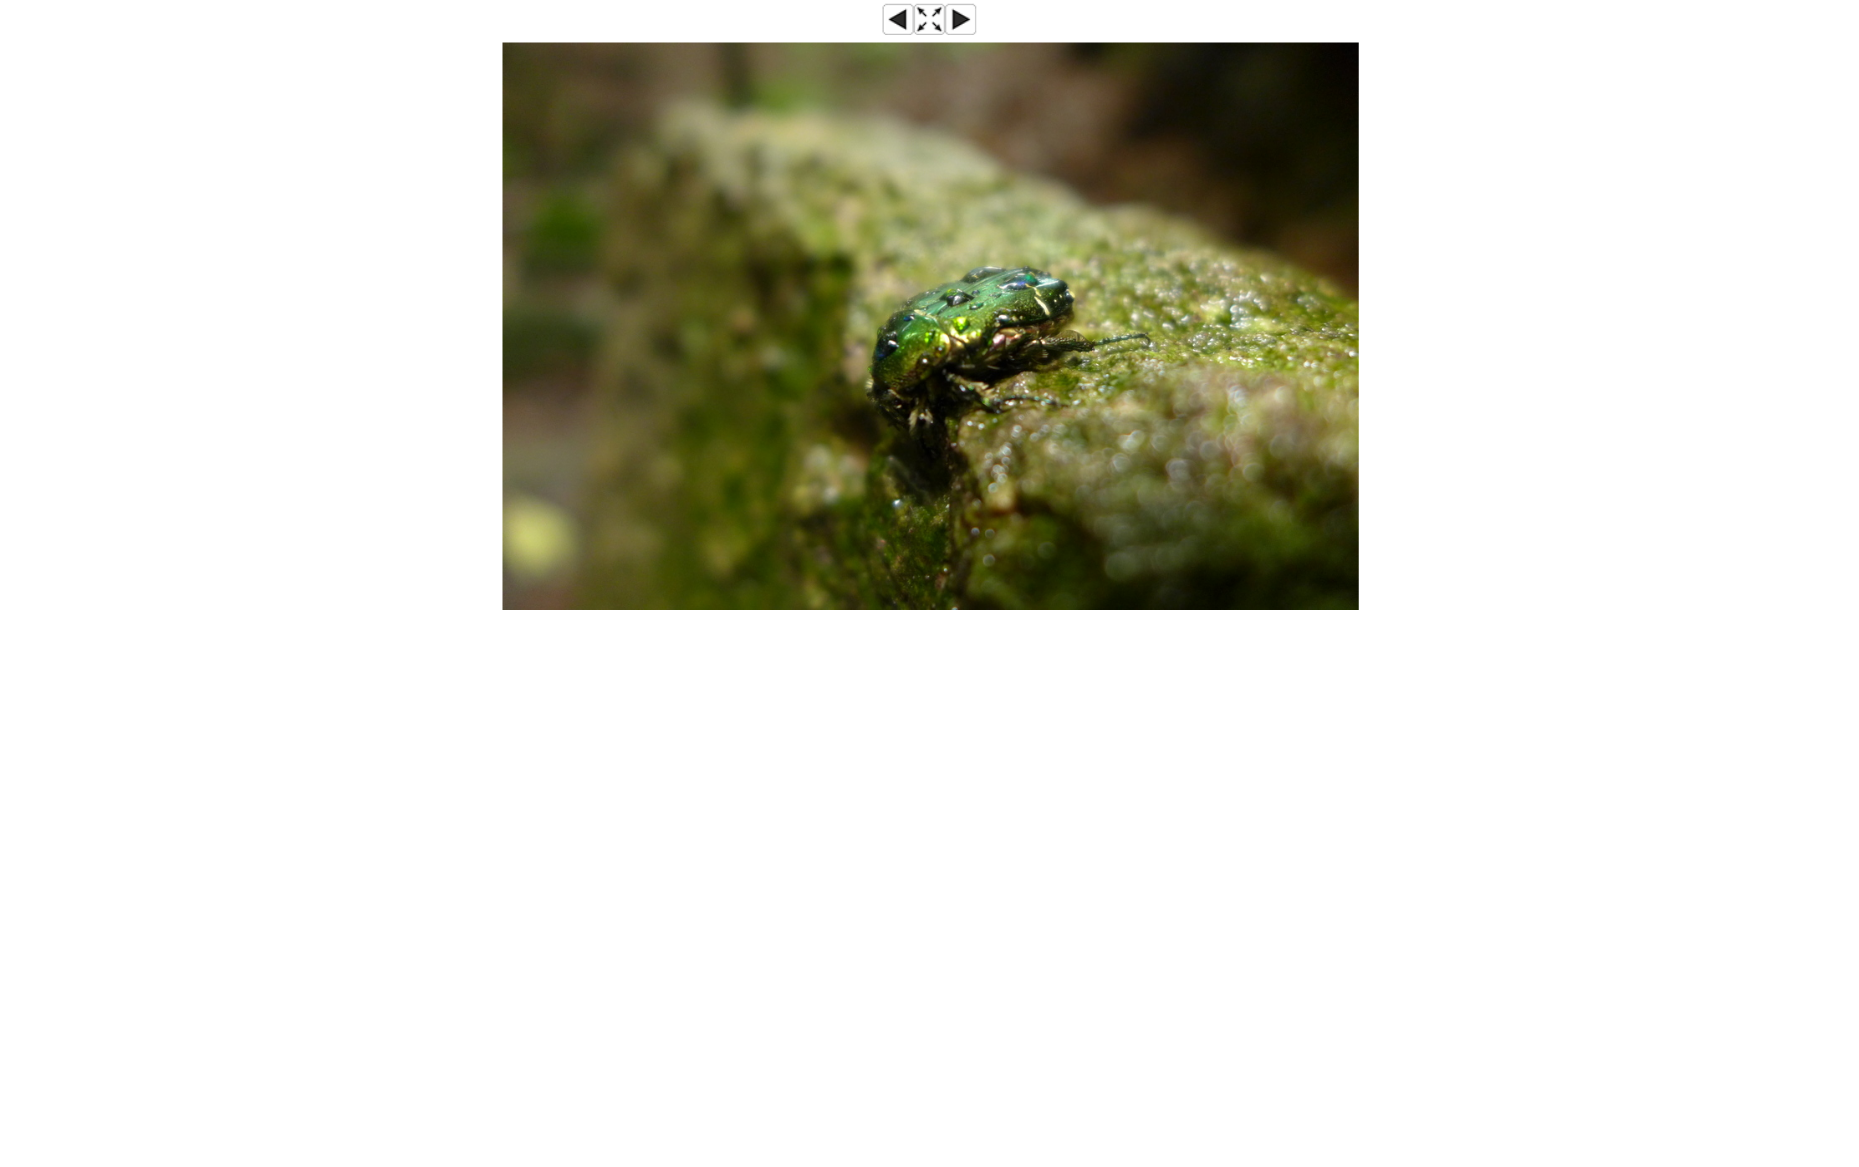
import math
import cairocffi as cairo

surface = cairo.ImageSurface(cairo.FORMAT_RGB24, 1859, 1167)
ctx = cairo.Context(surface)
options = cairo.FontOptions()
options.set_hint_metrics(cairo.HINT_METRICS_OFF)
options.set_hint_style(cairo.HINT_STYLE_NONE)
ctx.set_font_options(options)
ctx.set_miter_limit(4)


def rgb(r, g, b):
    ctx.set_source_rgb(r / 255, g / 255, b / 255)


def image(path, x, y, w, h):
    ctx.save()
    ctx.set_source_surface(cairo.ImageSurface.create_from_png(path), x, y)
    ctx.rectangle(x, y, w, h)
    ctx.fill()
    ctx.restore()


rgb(255, 255, 255)
ctx.paint()
image('image0.png', 882, 3, 32, 32)
image('image1.png', 913, 3, 32, 32)
image('image2.png', 945, 3, 32, 32)
image('image3.png', 502, 42, 857, 568)
surface.write_to_png('render.png')
